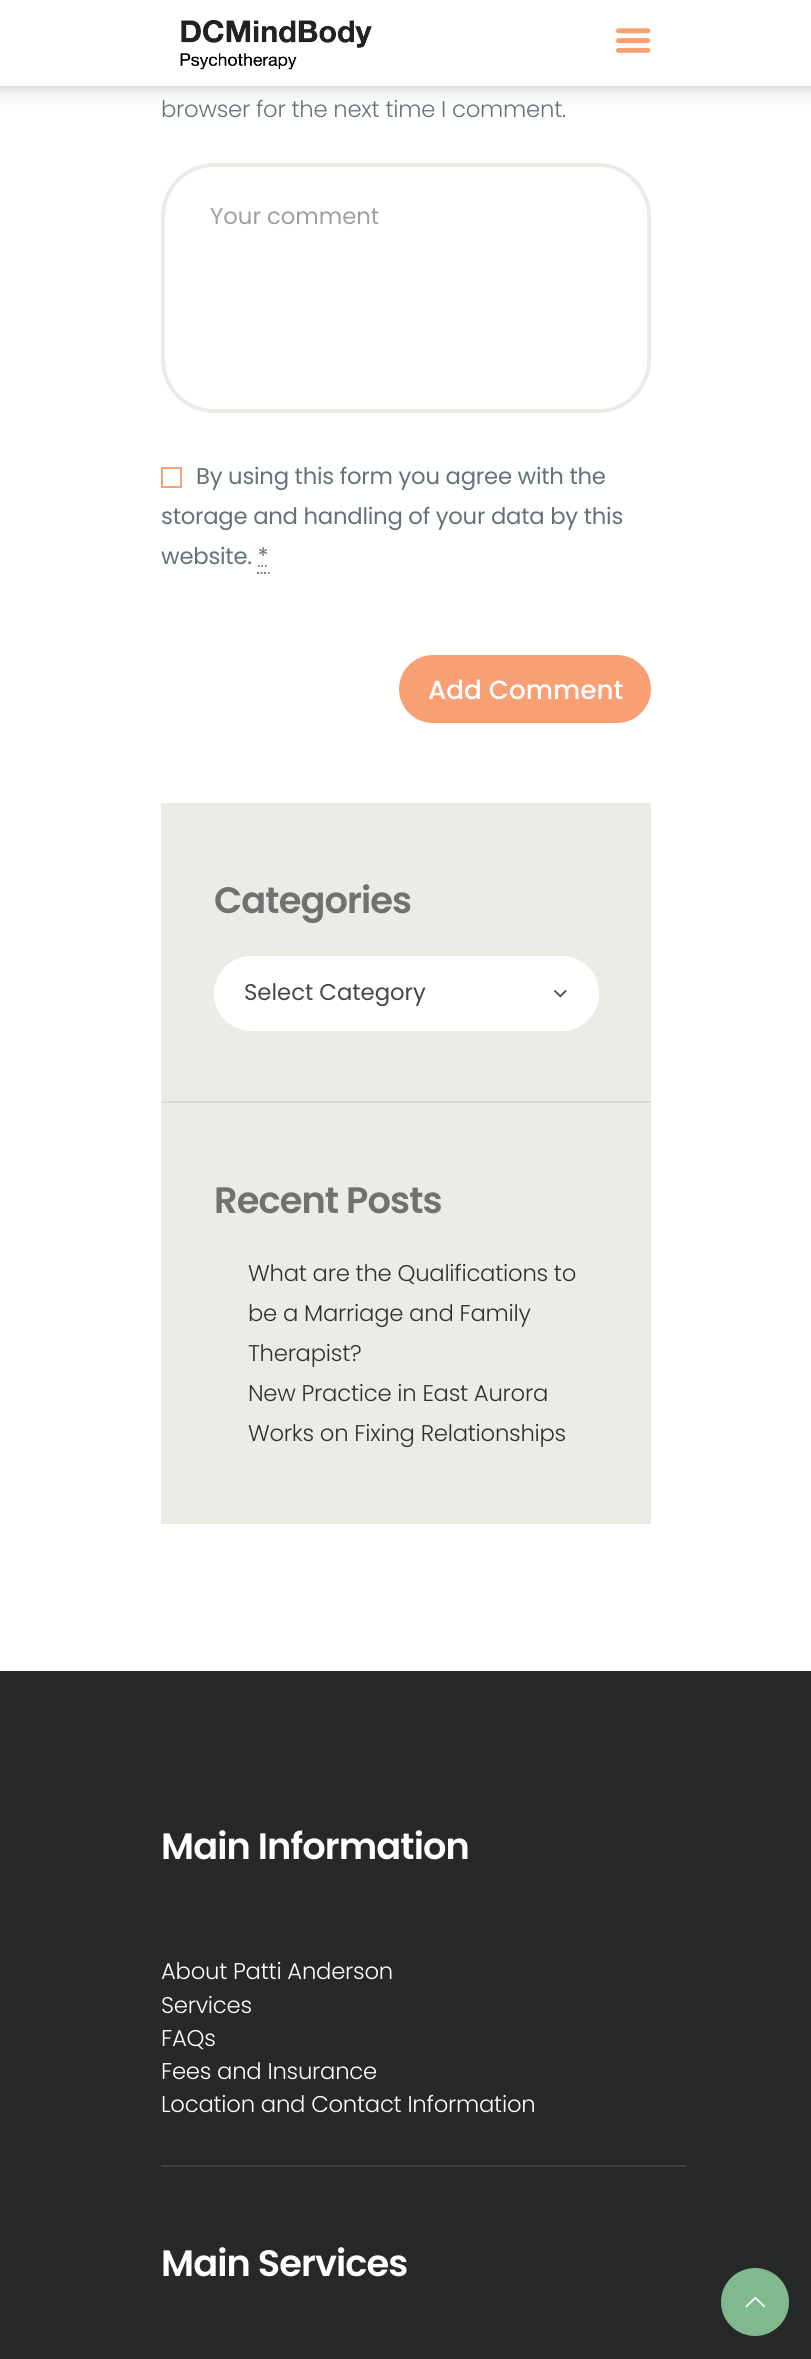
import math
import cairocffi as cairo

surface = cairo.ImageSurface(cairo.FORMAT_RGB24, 811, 2359)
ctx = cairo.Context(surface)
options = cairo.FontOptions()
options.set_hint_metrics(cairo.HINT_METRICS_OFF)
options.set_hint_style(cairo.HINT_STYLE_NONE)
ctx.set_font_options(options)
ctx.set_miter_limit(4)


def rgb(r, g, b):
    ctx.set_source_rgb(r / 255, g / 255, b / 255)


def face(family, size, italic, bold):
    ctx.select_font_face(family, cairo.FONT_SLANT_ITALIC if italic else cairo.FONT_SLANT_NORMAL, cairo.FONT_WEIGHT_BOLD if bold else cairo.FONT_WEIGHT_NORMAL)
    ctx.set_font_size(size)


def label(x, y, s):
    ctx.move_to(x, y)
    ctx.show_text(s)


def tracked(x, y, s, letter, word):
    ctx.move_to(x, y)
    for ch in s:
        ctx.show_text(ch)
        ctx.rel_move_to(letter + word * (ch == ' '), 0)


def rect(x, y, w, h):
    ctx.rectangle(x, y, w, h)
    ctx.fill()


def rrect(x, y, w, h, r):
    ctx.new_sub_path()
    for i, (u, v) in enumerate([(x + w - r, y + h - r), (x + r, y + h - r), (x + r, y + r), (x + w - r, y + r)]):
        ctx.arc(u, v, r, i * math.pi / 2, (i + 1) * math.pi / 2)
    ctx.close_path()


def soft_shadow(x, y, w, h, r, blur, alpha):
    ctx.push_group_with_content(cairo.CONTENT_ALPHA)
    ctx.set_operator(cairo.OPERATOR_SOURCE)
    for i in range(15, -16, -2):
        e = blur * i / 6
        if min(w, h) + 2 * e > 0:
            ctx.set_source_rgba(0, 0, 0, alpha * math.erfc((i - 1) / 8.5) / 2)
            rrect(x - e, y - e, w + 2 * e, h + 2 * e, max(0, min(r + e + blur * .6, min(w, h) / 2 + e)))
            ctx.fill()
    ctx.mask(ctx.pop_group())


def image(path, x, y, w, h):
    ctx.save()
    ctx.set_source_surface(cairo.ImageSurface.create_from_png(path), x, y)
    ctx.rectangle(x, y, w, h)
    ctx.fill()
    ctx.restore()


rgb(255, 255, 255)
ctx.paint()
rgb(0, 0, 0)
soft_shadow(-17, 4, 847, 85, 0, 9, 0.2)
rgb(255, 255, 255)
rect(0, 0, 811, 86)
image('image0.png', 180, 20, 192, 50)
image('image1.png', 616, 28, 35, 25)
face('Poppins Light', 22.75, 0, 0)
rgb(99, 115, 117)
tracked(161, 117, 'browser for the next time I comment.', -0.25, 0)
rrect(163, 165, 486, 246, 51)
rgb(236, 235, 230)
ctx.set_line_width(4)
ctx.stroke()
face('Poppins', 22.75, 0, 0)
rgb(160, 159, 157)
label(210, 224, 'Your comment')
ctx.rectangle(162, 468, 19, 19)
rgb(248, 159, 115)
ctx.set_line_width(2)
ctx.stroke()
rgb(99, 115, 117)
tracked(196, 484, 'By using this form you agree with the', -0.25, 0)
tracked(161, 524, 'storage and handling of your data by this', -0.25, 0)
tracked(161, 564, 'website. *', -0.25, 0)
ctx.new_path()
ctx.move_to(257, 573)
ctx.line_to(259, 573)
ctx.move_to(260.5, 573)
ctx.line_to(262.5, 573)
ctx.move_to(264, 573)
ctx.line_to(266, 573)
ctx.move_to(268, 573)
ctx.line_to(269.5, 573)
ctx.move_to(258, 566)
ctx.line_to(259.5, 566)
ctx.move_to(261.5, 566)
ctx.line_to(263, 566)
ctx.move_to(265, 566)
ctx.line_to(266.5, 566)
ctx.move_to(268.5, 566)
ctx.line_to(268.5, 566)
ctx.set_line_width(1.8)
ctx.stroke()
rgb(248, 159, 115)
rrect(399, 655, 252, 68, 34)
ctx.fill()
face('Poppins Medium', 26.25, 0, 0)
rgb(255, 255, 255)
label(428, 699, 'Add Comment')
rgb(236, 235, 230)
rect(161, 803, 490, 721)
face('Poppins SemiBold', 36.75, 0, 0)
rgb(112, 113, 113)
tracked(214, 913, 'Categories', -0.9, 0)
rgb(255, 255, 255)
rrect(214, 956, 385, 75, 37.5)
ctx.fill()
face('Poppins', 22.75, 0, 0)
rgb(71, 71, 71)
label(244, 1000, 'Select Category')
rgb(255, 255, 255)
ctx.new_path()
ctx.move_to(553, 956)
ctx.line_to(561.5, 956)
ctx.curve_to(582, 956, 599, 973, 599, 993.5)
ctx.curve_to(599, 1014, 582, 1031, 561.5, 1031)
ctx.line_to(553, 1031)
ctx.close_path()
ctx.fill()
image('image2.png', 554, 990, 13, 8)
rgb(219, 219, 219)
rect(161, 1101, 490, 2)
face('Poppins SemiBold', 36.75, 0, 0)
rgb(112, 113, 113)
tracked(214, 1213, 'Recent Posts', -0.9, 0)
face('Poppins Light', 22.75, 0, 0)
rgb(47, 48, 48)
tracked(248, 1281, 'What are the Qualifications to', -0.25, 0)
tracked(248, 1321, 'be a Marriage and Family', -0.25, 0)
tracked(248, 1361, 'Therapist?', -0.25, 0)
tracked(248, 1401, 'New Practice in East Aurora', -0.25, 0)
tracked(248, 1441, 'Works on Fixing Relationships', -0.25, 0)
rgb(39, 40, 40)
rect(0, 1671, 811, 688)
face('Poppins SemiBold', 36.75, 0, 0)
rgb(255, 255, 255)
tracked(161, 1859, 'Main Information', -0.9, 0)
face('Poppins Light', 22.75, 0, 0)
tracked(161, 1979, 'About Patti Anderson', -0.25, 0)
tracked(161, 2013, 'Services', -0.25, 0)
tracked(161, 2046, 'FAQs', -0.25, 0)
tracked(161, 2079, 'Fees and Insurance', -0.25, 0)
tracked(161, 2112, 'Location and Contact Information', -0.25, 0)
rgb(60, 61, 61)
rect(161, 2165, 525, 2)
face('Poppins SemiBold', 36.75, 0, 0)
rgb(255, 255, 255)
tracked(161, 2276, 'Main Services', -0.9, 0)
rgb(127, 185, 141)
ctx.new_path()
ctx.arc(755, 2302, 34, 0, 2 * math.pi)
ctx.fill()
image('image3.png', 745, 2296, 21, 12)
surface.write_to_png('render.png')
